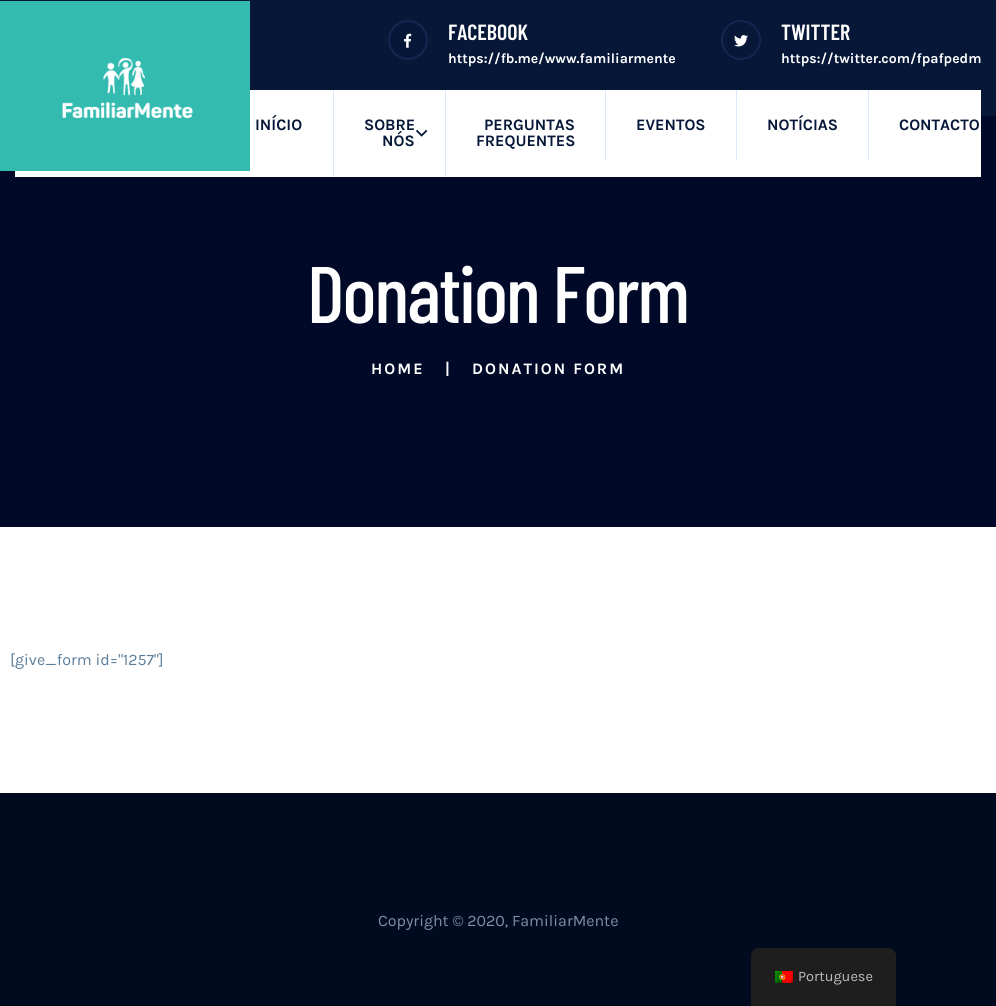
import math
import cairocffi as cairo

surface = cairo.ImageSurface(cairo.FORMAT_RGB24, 996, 1006)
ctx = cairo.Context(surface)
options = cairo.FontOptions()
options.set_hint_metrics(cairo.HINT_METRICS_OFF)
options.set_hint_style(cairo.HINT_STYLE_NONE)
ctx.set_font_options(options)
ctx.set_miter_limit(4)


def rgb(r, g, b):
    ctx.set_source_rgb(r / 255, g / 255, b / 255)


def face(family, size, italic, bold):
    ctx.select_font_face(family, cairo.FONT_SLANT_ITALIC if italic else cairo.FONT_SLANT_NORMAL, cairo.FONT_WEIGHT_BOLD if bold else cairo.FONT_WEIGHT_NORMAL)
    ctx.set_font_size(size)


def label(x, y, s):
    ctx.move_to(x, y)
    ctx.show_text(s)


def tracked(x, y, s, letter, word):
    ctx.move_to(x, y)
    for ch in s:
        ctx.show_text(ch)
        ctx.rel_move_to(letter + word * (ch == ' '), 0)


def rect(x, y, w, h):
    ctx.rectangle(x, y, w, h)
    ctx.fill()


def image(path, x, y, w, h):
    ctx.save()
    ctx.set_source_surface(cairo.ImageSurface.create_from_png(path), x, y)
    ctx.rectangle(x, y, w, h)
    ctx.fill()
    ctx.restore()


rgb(255, 255, 255)
ctx.paint()
rgb(6, 23, 56)
rect(0, 0, 996, 116)
ctx.arc(408, 40, 19, 0, 2 * math.pi)
rgb(18, 39, 80)
ctx.stroke()
image('image0.png', 404, 33, 8, 15)
face('Barlow Condensed SemiBold', 22, 0, 0)
rgb(255, 255, 255)
label(448, 40, 'FACEBOOK')
face('Karla', 14, 0, 1)
label(448, 63, 'https://fb.me/www.familiarmente')
ctx.new_path()
ctx.arc(741, 40, 19, 0, 2 * math.pi)
rgb(18, 39, 80)
ctx.stroke()
image('image1.png', 734, 35, 14, 12)
face('Barlow Condensed SemiBold', 22, 0, 0)
rgb(255, 255, 255)
label(781, 40, 'TWITTER')
face('Karla', 14, 0, 1)
label(781, 63, 'https://twitter.com/fpafpedm')
rgb(0, 9, 39)
rect(0, 116, 996, 411)
rgb(255, 255, 255)
rect(15, 90, 966, 87)
rgb(51, 187, 176)
rect(0, 1, 250, 170)
image('image2.png', 62, 57, 131, 61)
face('Karla', 16, 0, 1)
rgb(6, 23, 56)
label(255, 130, 'INÍCIO')
rgb(220, 232, 255)
rect(333, 90, 1, 86)
rgb(6, 23, 56)
label(364, 130, 'SOBRE')
label(382, 146, 'NÓS')
image('image3.png', 416, 129, 12, 8)
rgb(220, 232, 255)
rect(445, 90, 1, 86)
rgb(6, 23, 56)
label(484, 130, 'PERGUNTAS')
label(476, 146, 'FREQUENTES')
rgb(220, 232, 255)
rect(605, 90, 1, 70)
rgb(6, 23, 56)
label(636, 130, 'EVENTOS')
rgb(220, 232, 255)
rect(736, 90, 1, 70)
rgb(6, 23, 56)
label(767, 130, 'NOTÍCIAS')
rgb(220, 232, 255)
rect(868, 90, 1, 70)
rgb(6, 23, 56)
label(899, 130, 'CONTACTO')
face('Barlow Condensed Medium', 80, 0, 0)
rgb(255, 255, 255)
tracked(307, 323, 'Donation Form', -2, 0)
face('Karla', 16, 0, 1)
tracked(371, 374, 'HOME', 2, 0)
tracked(445, 374, '|', 2, 0)
tracked(472, 374, 'DONATION FORM', 2, 0)
face('Karla', 16, 0, 0)
rgb(91, 125, 154)
label(10, 665, '[give_form id="1257"]')
rgb(0, 11, 32)
rect(0, 793, 996, 213)
rgb(128, 142, 170)
label(378, 926, 'Copyright © 2020, FamiliarMente')
rgb(30, 30, 30)
ctx.new_path()
ctx.move_to(759, 948)
ctx.line_to(888, 948)
ctx.curve_to(892.5, 948, 896, 951.5, 896, 956)
ctx.line_to(896, 1006)
ctx.line_to(751, 1006)
ctx.line_to(751, 956)
ctx.curve_to(751, 951.5, 754.5, 948, 759, 948)
ctx.close_path()
ctx.fill()
image('image4.png', 775, 971, 18, 12)
face('Karla', 14.5, 0, 0)
rgb(189, 189, 189)
label(798, 981, 'Portuguese')
surface.write_to_png('render.png')
